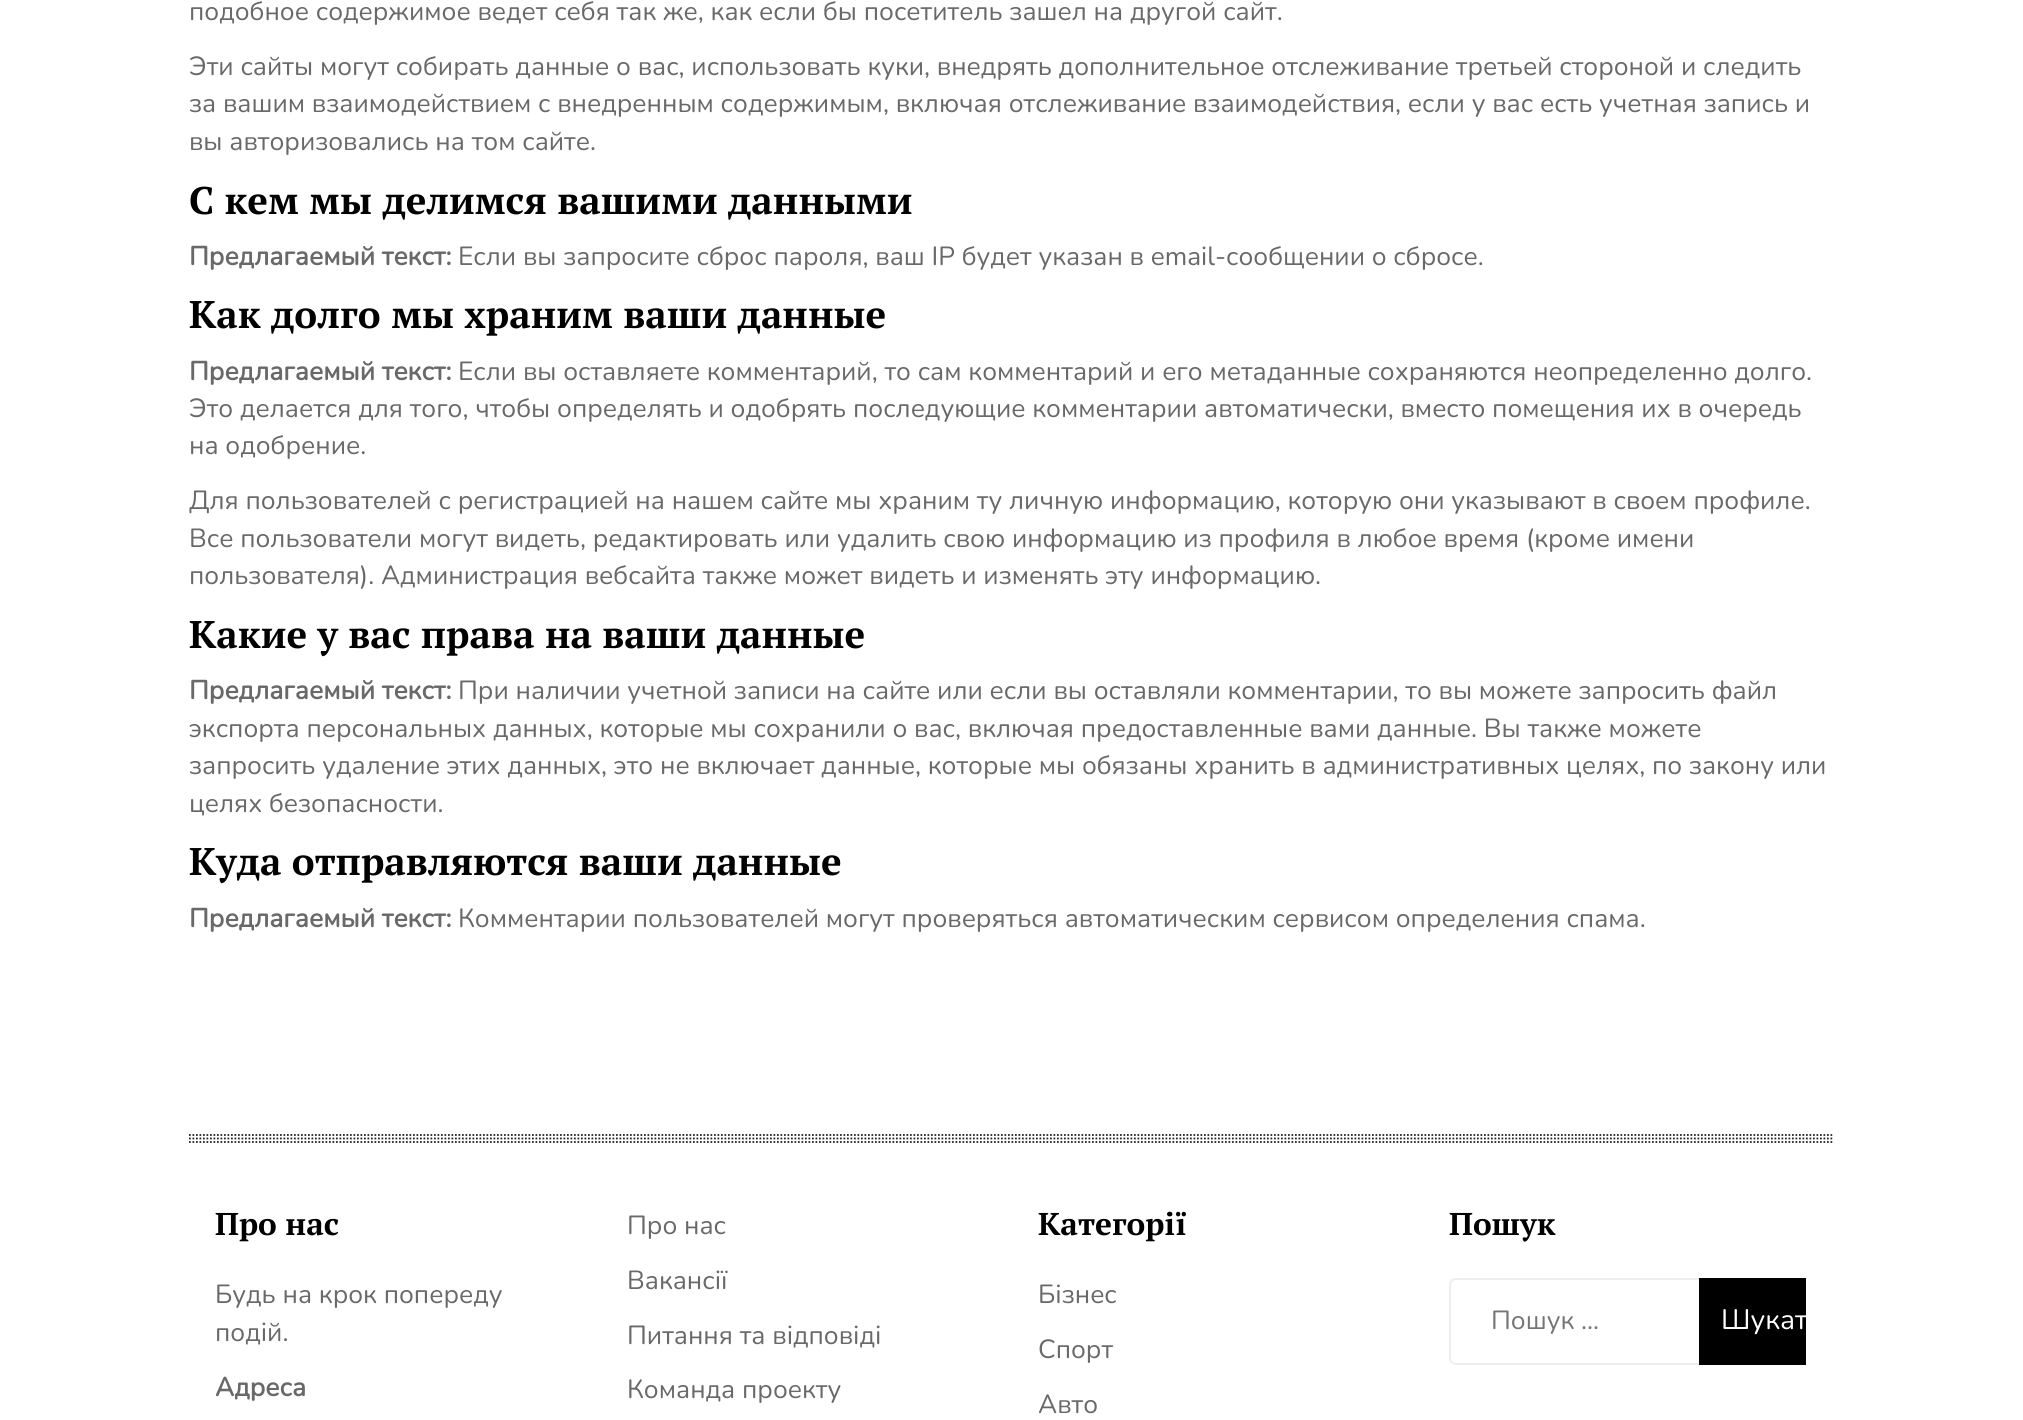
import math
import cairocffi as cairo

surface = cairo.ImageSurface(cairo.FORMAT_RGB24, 2023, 1420)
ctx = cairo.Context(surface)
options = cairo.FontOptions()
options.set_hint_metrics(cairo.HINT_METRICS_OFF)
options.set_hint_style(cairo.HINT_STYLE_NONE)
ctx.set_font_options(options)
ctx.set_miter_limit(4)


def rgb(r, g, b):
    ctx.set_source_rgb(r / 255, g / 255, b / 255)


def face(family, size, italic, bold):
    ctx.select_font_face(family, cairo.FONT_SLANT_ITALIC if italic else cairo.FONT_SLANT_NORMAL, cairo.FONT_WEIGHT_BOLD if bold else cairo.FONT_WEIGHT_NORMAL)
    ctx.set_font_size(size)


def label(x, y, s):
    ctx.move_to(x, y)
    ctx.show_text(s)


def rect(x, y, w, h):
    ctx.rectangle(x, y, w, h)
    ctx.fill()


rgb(255, 255, 255)
ctx.paint()
face('Nunito', 26.25, 0, 0)
rgb(105, 105, 105)
label(189, 20, 'подобное содержимое ведет себя так же, как если бы посетитель зашел на другой сайт.')
label(189, 75, 'Эти сайты могут собирать данные о вас, использовать куки, внедрять дополнительное отслеживание третьей стороной и следить')
label(189, 112, 'за вашим взаимодействием с внедренным содержимым, включая отслеживание взаимодействия, если у вас есть учетная запись и')
label(189, 150, 'вы авторизовались на том сайте.')
face('PT Serif', 38.5, 0, 1)
rgb(0, 0, 0)
label(189, 214, 'С кем мы делимся вашими данными')
face('Nunito', 26.25, 0, 1)
rgb(105, 105, 105)
label(189, 265, 'Предлагаемый текст:')
face('Nunito', 26.25, 0, 0)
label(458, 265, 'Если вы запросите сброс пароля, ваш IP будет указан в email-сообщении о сбросе.')
face('PT Serif', 38.5, 0, 1)
rgb(0, 0, 0)
label(189, 328, 'Как долго мы храним ваши данные')
face('Nunito', 26.25, 0, 1)
rgb(105, 105, 105)
label(189, 380, 'Предлагаемый текст:')
face('Nunito', 26.25, 0, 0)
label(458, 380, 'Если вы оставляете комментарий, то сам комментарий и его метаданные сохраняются неопределенно долго.')
label(189, 417, 'Это делается для того, чтобы определять и одобрять последующие комментарии автоматически, вместо помещения их в очередь')
label(189, 454, 'на одобрение.')
label(189, 509, 'Для пользователей с регистрацией на нашем сайте мы храним ту личную информацию, которую они указывают в своем профиле.')
label(189, 547, 'Все пользователи могут видеть, редактировать или удалить свою информацию из профиля в любое время (кроме имени')
label(189, 584, 'пользователя). Администрация вебсайта также может видеть и изменять эту информацию.')
face('PT Serif', 38.5, 0, 1)
rgb(0, 0, 0)
label(189, 648, 'Какие у вас права на ваши данные')
face('Nunito', 26.25, 0, 1)
rgb(105, 105, 105)
label(189, 699, 'Предлагаемый текст:')
face('Nunito', 26.25, 0, 0)
label(458, 699, 'При наличии учетной записи на сайте или если вы оставляли комментарии, то вы можете запросить файл')
label(189, 737, 'экспорта персональных данных, которые мы сохранили о вас, включая предоставленные вами данные. Вы также можете')
label(189, 774, 'запросить удаление этих данных, это не включает данные, которые мы обязаны хранить в административных целях, по закону или')
label(189, 812, 'целях безопасности.')
face('PT Serif', 38.5, 0, 1)
rgb(0, 0, 0)
label(189, 875, 'Куда отправляются ваши данные')
face('Nunito', 26.25, 0, 1)
rgb(105, 105, 105)
label(189, 927, 'Предлагаемый текст:')
face('Nunito', 26.25, 0, 0)
label(458, 927, 'Комментарии пользователей могут проверяться автоматическим сервисом определения спама.')
ctx.new_path()
ctx.move_to(189, 1138.5)
ctx.line_to(1834, 1138.5)
rgb(34, 34, 34)
ctx.set_line_width(1.8)
ctx.set_dash([1.75, 1.75])
ctx.stroke()
ctx.new_path()
ctx.move_to(189, 1135)
ctx.line_to(1834, 1135)
ctx.stroke()
ctx.new_path()
ctx.move_to(189, 1142)
ctx.line_to(1834, 1142)
ctx.stroke()
face('PT Serif', 31.5, 0, 1)
rgb(0, 0, 0)
label(215, 1235, 'Про нас')
face('Nunito', 26.25, 0, 0)
rgb(105, 105, 105)
label(215, 1303, 'Будь на крок попереду')
label(215, 1341, 'подій.')
face('Nunito', 26.25, 0, 1)
label(215, 1396, 'Адреса')
face('Nunito', 26.25, 0, 0)
label(627, 1234, 'Про нас')
label(627, 1289, 'Вакансії')
label(627, 1344, 'Питання та відповіді')
label(627, 1398, 'Команда проекту')
face('PT Serif', 31.5, 0, 1)
rgb(0, 0, 0)
label(1038, 1235, 'Категорії')
face('Nunito', 26.25, 0, 0)
rgb(105, 105, 105)
label(1038, 1303, 'Бізнес')
label(1038, 1358, 'Спорт')
label(1038, 1413, 'Авто')
face('PT Serif', 31.5, 0, 1)
rgb(0, 0, 0)
label(1449, 1235, 'Пошук')
ctx.new_path()
ctx.move_to(1456, 1279)
ctx.line_to(1704, 1279)
ctx.line_to(1704, 1364)
ctx.line_to(1456, 1364)
ctx.curve_to(1452.5, 1364, 1450, 1361.5, 1450, 1358)
ctx.line_to(1450, 1285)
ctx.curve_to(1450, 1281.5, 1452.5, 1279, 1456, 1279)
ctx.close_path()
rgb(238, 238, 238)
ctx.set_line_width(2)
ctx.set_dash([])
ctx.stroke()
face('Nunito', 26.25, 0, 0)
rgb(117, 117, 117)
label(1491, 1329, 'Пошук …')
rgb(0, 0, 0)
rect(1699, 1278, 107, 87)
ctx.save()
ctx.rectangle(1699, 1278, 107, 87)
ctx.clip()
face('Nunito', 28, 0, 0)
rgb(255, 255, 255)
label(1721, 1329, 'Шукат')
ctx.restore()
surface.write_to_png('render.png')
